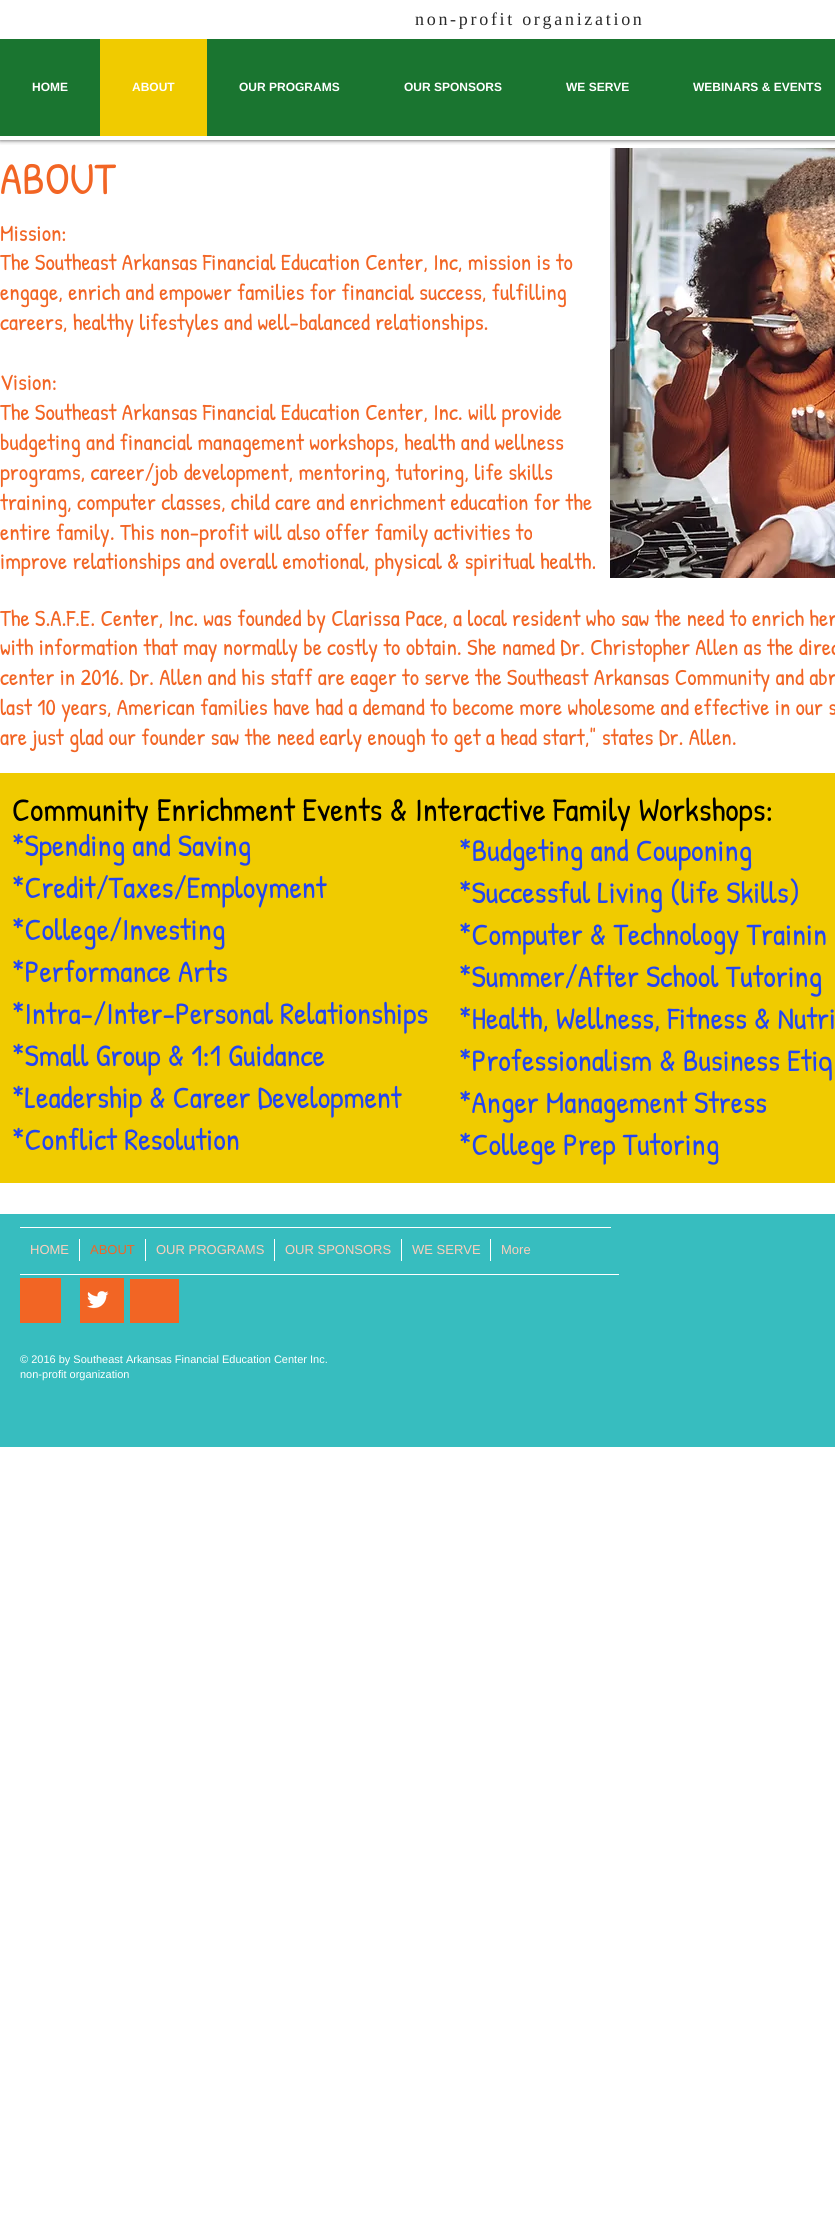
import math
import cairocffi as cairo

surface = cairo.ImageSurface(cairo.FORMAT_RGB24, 835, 2239)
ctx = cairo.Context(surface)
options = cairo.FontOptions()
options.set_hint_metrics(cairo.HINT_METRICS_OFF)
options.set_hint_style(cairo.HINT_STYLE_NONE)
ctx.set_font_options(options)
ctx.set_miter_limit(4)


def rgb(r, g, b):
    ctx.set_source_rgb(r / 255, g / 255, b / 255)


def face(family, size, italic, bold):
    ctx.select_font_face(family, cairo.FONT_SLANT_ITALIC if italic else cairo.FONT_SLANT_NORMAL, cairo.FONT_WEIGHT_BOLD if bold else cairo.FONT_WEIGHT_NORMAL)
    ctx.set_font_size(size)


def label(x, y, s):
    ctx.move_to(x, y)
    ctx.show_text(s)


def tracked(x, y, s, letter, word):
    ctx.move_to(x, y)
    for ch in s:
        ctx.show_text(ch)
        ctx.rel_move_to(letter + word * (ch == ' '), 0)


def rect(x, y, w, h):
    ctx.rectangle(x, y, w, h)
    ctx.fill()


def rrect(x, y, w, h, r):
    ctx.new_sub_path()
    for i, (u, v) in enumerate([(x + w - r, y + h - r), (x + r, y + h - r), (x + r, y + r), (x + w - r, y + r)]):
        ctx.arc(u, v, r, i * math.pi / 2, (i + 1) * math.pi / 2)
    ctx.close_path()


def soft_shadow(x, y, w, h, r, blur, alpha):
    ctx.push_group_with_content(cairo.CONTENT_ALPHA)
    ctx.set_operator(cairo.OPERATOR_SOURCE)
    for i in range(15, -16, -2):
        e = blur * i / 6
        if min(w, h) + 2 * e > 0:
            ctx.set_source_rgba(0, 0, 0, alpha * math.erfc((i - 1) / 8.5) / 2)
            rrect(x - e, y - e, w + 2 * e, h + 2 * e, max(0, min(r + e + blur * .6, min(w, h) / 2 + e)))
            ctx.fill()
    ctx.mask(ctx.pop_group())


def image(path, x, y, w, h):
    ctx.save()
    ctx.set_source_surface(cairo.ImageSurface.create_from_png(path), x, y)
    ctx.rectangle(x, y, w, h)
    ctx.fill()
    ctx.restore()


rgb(255, 255, 255)
ctx.paint()
ctx.save()
ctx.rectangle(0, 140, 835, 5)
ctx.clip()
rgb(0, 0, 0)
soft_shadow(0, 0, 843, 140, 0, 2.5, 0.7)
ctx.restore()
face('Liberation Serif', 18, 0, 0)
rgb(41, 41, 41)
tracked(415, 25, 'non-profit organization', 2.7, 0)
rgb(26, 117, 48)
rect(0, 39, 100, 97)
face('Liberation Sans', 12, 0, 1)
rgb(255, 255, 255)
label(32, 91, 'HOME')
rgb(240, 203, 0)
rect(100, 39, 107, 97)
rgb(255, 255, 255)
label(132, 91, 'ABOUT')
rgb(26, 117, 48)
rect(207, 39, 628, 97)
rgb(255, 255, 255)
label(239, 91, 'OUR PROGRAMS')
label(404, 91, 'OUR SPONSORS')
label(566, 91, 'WE SERVE')
label(693, 91, 'WEBINARS & EVENTS')
face('Patrick Hand', 45, 0, 0)
rgb(242, 101, 36)
label(0, 194, 'ABOUT')
face('Patrick Hand', 23, 0, 0)
label(0, 241, 'Mission:')
label(0, 270, 'The Southeast Arkansas Financial Education Center, Inc, mission is to')
label(0, 300, 'engage, enrich and empower families for financial success, fulfilling')
label(0, 330, 'careers, healthy lifestyles and well-balanced relationships.')
label(0, 390, 'Vision:')
label(0, 420, 'The Southeast Arkansas Financial Education Center, Inc. will provide')
label(0, 450, 'budgeting and financial management workshops, health and wellness')
label(0, 480, 'programs, career/job development, mentoring, tutoring, life skills')
label(0, 510, 'training, computer classes, child care and enrichment education for the')
label(0, 540, 'entire family. This non-profit will also offer family activities to')
label(0, 569, 'improve relationships and overall emotional, physical & spiritual health.')
image('image0.png', 610, 148, 225, 430)
label(0, 626, 'The S.A.F.E. Center, Inc. was founded by Clarissa Pace, a local resident who saw the need to enrich her')
label(0, 655, 'with information that may normally be costly to obtain. She named Dr. Christopher Allen as the direc')
label(0, 685, 'center in 2016. Dr. Allen and his staff are eager to serve the Southeast Arkansas Community and abr')
label(0, 715, 'last 10 years, American families have had a demand to become more wholesome and effective in our s')
label(0, 745, 'are just glad our founder saw the need early enough to get a head start," states Dr. Allen.')
rgb(240, 203, 0)
rect(0, 773, 835, 410)
face('Patrick Hand', 33, 0, 0)
rgb(0, 0, 0)
label(12, 821, 'Community Enrichment Events & Interactive Family Workshops:')
face('Patrick Hand', 31, 0, 0)
rgb(36, 70, 242)
label(12, 856, '*Spending and Saving')
label(12, 898, '*Credit/Taxes/Employment')
label(12, 940, '*College/Investing')
label(12, 982, '*Performance Arts')
label(12, 1024, '*Intra-/Inter-Personal Relationships')
label(12, 1066, '*Small Group & 1:1 Guidance')
label(12, 1108, '*Leadership & Career Development')
label(12, 1150, '*Conflict Resolution')
label(459, 861, '*Budgeting and Couponing')
label(459, 903, '*Successful Living (life Skills)')
label(459, 945, '*Computer & Technology Trainin')
label(459, 987, '*Summer/After School Tutoring')
label(459, 1029, '*Health, Wellness, Fitness & Nutri')
label(459, 1071, '*Professionalism & Business Etiq')
label(459, 1113, '*Anger Management Stress')
label(459, 1155, '*College Prep Tutoring')
rgb(55, 189, 191)
rect(0, 1214, 835, 233)
rgb(255, 255, 255)
rect(20, 1227, 591, 1)
face('Liberation Sans', 13, 0, 0)
rgb(251, 207, 189)
label(30, 1254, 'HOME')
rgb(255, 255, 255)
rect(79, 1239, 1, 22)
rgb(242, 101, 36)
label(90, 1254, 'ABOUT')
rgb(255, 255, 255)
rect(145, 1239, 1, 22)
rgb(251, 207, 189)
label(156, 1254, 'OUR PROGRAMS')
rgb(255, 255, 255)
rect(274, 1239, 1, 22)
rgb(251, 207, 189)
label(285, 1254, 'OUR SPONSORS')
rgb(255, 255, 255)
rect(401, 1239, 1, 22)
rgb(251, 207, 189)
label(412, 1254, 'WE SERVE')
rgb(255, 255, 255)
rect(490, 1239, 1, 22)
rgb(251, 207, 189)
label(501, 1254, 'More')
rgb(255, 255, 255)
rect(20, 1274, 599, 1)
rgb(242, 101, 36)
rect(20, 1278, 41, 45)
rect(80, 1278, 44, 45)
rect(130, 1279, 49, 44)
image('image1.png', 87, 1291, 22, 18)
face('Liberation Sans', 11, 0, 0)
rgb(255, 255, 255)
label(20, 1363, '© 2016 by Southeast Arkansas Financial Education Center Inc.')
label(20, 1378, 'non-profit organization')
surface.write_to_png('render.png')
